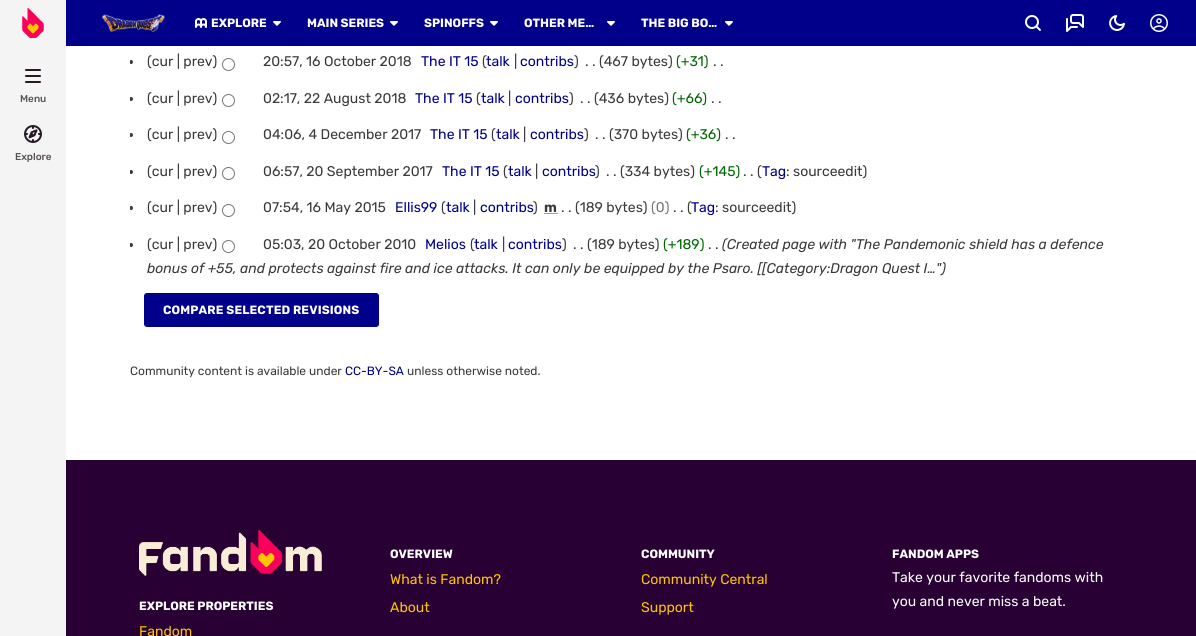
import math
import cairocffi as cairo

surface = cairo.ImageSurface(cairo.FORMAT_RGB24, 1196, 636)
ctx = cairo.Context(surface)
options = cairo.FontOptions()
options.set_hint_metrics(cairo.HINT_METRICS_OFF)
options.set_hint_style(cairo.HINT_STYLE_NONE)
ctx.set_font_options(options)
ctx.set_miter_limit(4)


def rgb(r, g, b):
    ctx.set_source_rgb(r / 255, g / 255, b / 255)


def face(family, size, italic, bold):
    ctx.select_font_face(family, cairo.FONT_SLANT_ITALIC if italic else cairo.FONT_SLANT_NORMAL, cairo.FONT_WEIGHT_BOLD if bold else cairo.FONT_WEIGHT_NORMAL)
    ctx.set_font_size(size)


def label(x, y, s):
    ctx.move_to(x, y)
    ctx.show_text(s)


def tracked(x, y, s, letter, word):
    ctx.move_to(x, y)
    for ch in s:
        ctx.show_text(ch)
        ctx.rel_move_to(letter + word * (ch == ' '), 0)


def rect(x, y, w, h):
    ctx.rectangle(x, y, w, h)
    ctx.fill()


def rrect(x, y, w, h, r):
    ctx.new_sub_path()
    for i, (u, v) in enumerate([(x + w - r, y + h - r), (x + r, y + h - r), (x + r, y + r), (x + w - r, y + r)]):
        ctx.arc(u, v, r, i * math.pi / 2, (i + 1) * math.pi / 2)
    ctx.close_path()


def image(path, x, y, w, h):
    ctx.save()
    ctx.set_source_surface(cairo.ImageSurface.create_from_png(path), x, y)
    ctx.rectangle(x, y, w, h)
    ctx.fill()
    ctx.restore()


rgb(255, 255, 255)
ctx.paint()
rgb(0, 0, 139)
rect(66, 0, 1130, 46)
rgb(244, 244, 244)
rect(0, 0, 66, 636)
image('image0.png', 22, 8, 22, 30)
image('image1.png', 101, 14, 64, 19)
image('image2.png', 195, 18, 12, 10)
face('Rubik', 12, 0, 1)
rgb(255, 255, 255)
label(211, 27, 'EXPLORE')
image('image3.png', 273, 21, 8, 5)
label(307, 27, 'MAIN SERIES')
image('image3.png', 390, 21, 8, 5)
label(424, 27, 'SPINOFFS')
image('image3.png', 490, 21, 8, 5)
label(524, 27, 'OTHER ME…')
image('image3.png', 607, 21, 8, 5)
label(641, 27, 'THE BIG BO…')
image('image3.png', 725, 21, 8, 5)
image('image4.png', 1025, 15, 16, 16)
image('image5.png', 1066, 14, 18, 18)
image('image6.png', 1109, 15, 16, 16)
image('image7.png', 1150, 14, 18, 18)
image('image8.png', 25, 69, 16, 14)
face('Rubik Medium', 10, 0, 0)
rgb(89, 83, 88)
label(20, 102, 'Menu')
image('image9.png', 24, 125, 18, 18)
label(15, 160, 'Explore')
ctx.save()
ctx.rectangle(130, 0, 1002, 327)
ctx.clip()
rgb(58, 58, 58)
ctx.arc(131, 62, 2, 0, 2 * math.pi)
ctx.fill()
ctx.restore()
face('Rubik', 14, 0, 0)
rgb(58, 58, 58)
label(147, 66, '(cur | prev)')
ctx.new_path()
ctx.arc(228.5, 64.5, 6, 0, 2 * math.pi)
rgb(118, 118, 118)
ctx.set_line_width(1)
ctx.stroke()
rgb(58, 58, 58)
label(263, 66, '20:57, 16 October 2018')
rgb(0, 0, 139)
label(421, 66, 'The IT 15')
rgb(58, 58, 58)
label(482, 66, '(')
rgb(0, 0, 139)
label(486, 66, 'talk')
rgb(58, 58, 58)
label(514, 66, '|')
rgb(0, 0, 139)
label(520, 66, 'contribs')
rgb(58, 58, 58)
label(574, 66, ')')
label(585, 66, '. . (467 bytes)')
rgb(0, 101, 0)
label(676, 66, '(+31)')
rgb(58, 58, 58)
label(713, 66, '. .')
ctx.save()
ctx.rectangle(130, 0, 1002, 327)
ctx.clip()
ctx.arc(131, 99, 2, 0, 2 * math.pi)
ctx.fill()
ctx.restore()
label(147, 103, '(cur | prev)')
ctx.new_path()
ctx.arc(228.5, 100.5, 6, 0, 2 * math.pi)
rgb(118, 118, 118)
ctx.stroke()
rgb(58, 58, 58)
label(263, 103, '02:17, 22 August 2018')
rgb(0, 0, 139)
label(415, 103, 'The IT 15')
rgb(58, 58, 58)
label(476, 103, '(')
rgb(0, 0, 139)
label(481, 103, 'talk')
rgb(58, 58, 58)
label(508, 103, '|')
rgb(0, 0, 139)
label(515, 103, 'contribs')
rgb(58, 58, 58)
label(569, 103, ')')
label(580, 103, '. . (436 bytes)')
rgb(0, 101, 0)
label(672, 103, '(+66)')
rgb(58, 58, 58)
label(711, 103, '. .')
ctx.save()
ctx.rectangle(130, 0, 1002, 327)
ctx.clip()
ctx.arc(131, 135, 2, 0, 2 * math.pi)
ctx.fill()
ctx.restore()
label(147, 139, '(cur | prev)')
ctx.new_path()
ctx.arc(228.5, 137.5, 6, 0, 2 * math.pi)
rgb(118, 118, 118)
ctx.stroke()
rgb(58, 58, 58)
label(263, 139, '04:06, 4 December 2017')
rgb(0, 0, 139)
label(430, 139, 'The IT 15')
rgb(58, 58, 58)
label(491, 139, '(')
rgb(0, 0, 139)
label(496, 139, 'talk')
rgb(58, 58, 58)
label(523, 139, '|')
rgb(0, 0, 139)
label(530, 139, 'contribs')
rgb(58, 58, 58)
label(584, 139, ')')
label(595, 139, '. . (370 bytes)')
rgb(0, 101, 0)
label(686, 139, '(+36)')
rgb(58, 58, 58)
label(725, 139, '. .')
ctx.save()
ctx.rectangle(130, 0, 1002, 327)
ctx.clip()
ctx.arc(131, 172, 2, 0, 2 * math.pi)
ctx.fill()
ctx.restore()
label(147, 176, '(cur | prev)')
ctx.new_path()
ctx.arc(228.5, 173.5, 6, 0, 2 * math.pi)
rgb(118, 118, 118)
ctx.stroke()
rgb(58, 58, 58)
label(263, 176, '06:57, 20 September 2017')
rgb(0, 0, 139)
label(442, 176, 'The IT 15')
rgb(58, 58, 58)
label(503, 176, '(')
rgb(0, 0, 139)
label(508, 176, 'talk')
rgb(58, 58, 58)
label(535, 176, '|')
rgb(0, 0, 139)
label(542, 176, 'contribs')
rgb(58, 58, 58)
label(595, 176, ')')
label(606, 176, '. . (334 bytes)')
rgb(0, 101, 0)
label(699, 176, '(+145)')
rgb(58, 58, 58)
label(743, 176, '. . (')
rgb(0, 0, 139)
label(762, 176, 'Tag')
rgb(58, 58, 58)
label(786, 176, ': sourceedit)')
ctx.save()
ctx.rectangle(130, 0, 1002, 327)
ctx.clip()
ctx.arc(131, 208, 2, 0, 2 * math.pi)
ctx.fill()
ctx.restore()
label(147, 212, '(cur | prev)')
ctx.new_path()
ctx.arc(228.5, 210.5, 6, 0, 2 * math.pi)
rgb(118, 118, 118)
ctx.stroke()
rgb(58, 58, 58)
label(263, 212, '07:54, 16 May 2015')
rgb(0, 0, 139)
label(395, 212, 'Ellis99')
rgb(58, 58, 58)
label(441, 212, '(')
rgb(0, 0, 139)
label(446, 212, 'talk')
rgb(58, 58, 58)
label(473, 212, '|')
rgb(0, 0, 139)
label(480, 212, 'contribs')
rgb(58, 58, 58)
label(533, 212, ')')
face('Rubik', 14, 0, 1)
label(544, 212, 'm')
ctx.new_path()
ctx.move_to(544.5, 213.5)
ctx.line_to(557.5, 213.5)
ctx.set_dash([1, 1])
ctx.stroke()
face('Rubik', 14, 0, 0)
label(561, 212, '. . (189 bytes)')
rgb(118, 118, 118)
label(651, 212, '(0)')
rgb(58, 58, 58)
label(673, 212, '. . (')
rgb(0, 0, 139)
label(691, 212, 'Tag')
rgb(58, 58, 58)
label(715, 212, ': sourceedit)')
ctx.save()
ctx.rectangle(130, 0, 1002, 327)
ctx.clip()
ctx.arc(131, 245, 2, 0, 2 * math.pi)
ctx.fill()
ctx.restore()
label(147, 249, '(cur | prev)')
ctx.new_path()
ctx.arc(228.5, 246.5, 6, 0, 2 * math.pi)
rgb(118, 118, 118)
ctx.set_dash([])
ctx.stroke()
rgb(58, 58, 58)
label(263, 249, '05:03, 20 October 2010')
rgb(0, 0, 139)
label(425, 249, 'Melios')
rgb(58, 58, 58)
label(470, 249, '(')
rgb(0, 0, 139)
label(474, 249, 'talk')
rgb(58, 58, 58)
label(502, 249, '|')
rgb(0, 0, 139)
label(508, 249, 'contribs')
rgb(58, 58, 58)
label(562, 249, ')')
label(573, 249, '. . (189 bytes)')
rgb(0, 101, 0)
label(663, 249, '(+189)')
face('Rubik', 14, 1, 0)
rgb(58, 58, 58)
label(722, 249, '(Created page with "The Pandemonic shield has a defence')
face('Rubik', 14, 0, 0)
label(708, 249, '. .')
face('Rubik', 14, 1, 0)
label(147, 273, 'bonus of +55, and protects against fire and ice attacks. It can only be equipped by the Psaro. [[Category:Dragon Quest I…")')
rgb(0, 0, 139)
rrect(144.5, 293.5, 234, 33, 2.5)
ctx.fill_preserve()
ctx.stroke()
face('Rubik', 12, 0, 1)
rgb(255, 255, 255)
tracked(163, 314, 'COMPARE SELECTED REVISIONS', 0.15, 0)
face('Rubik', 12, 0, 0)
rgb(58, 58, 58)
label(130, 375, 'Community content is available under')
rgb(0, 0, 139)
label(345, 375, 'CC-BY-SA')
rgb(58, 58, 58)
label(407, 375, 'unless otherwise noted.')
rgb(40, 0, 51)
rect(66, 460, 1130, 176)
face('Rubik', 12, 0, 1)
rgb(255, 255, 255)
label(390, 558, 'OVERVIEW')
face('Rubik', 14, 0, 0)
rgb(255, 197, 0)
label(390, 584, 'What is Fandom?')
label(390, 612, 'About')
face('Rubik', 12, 0, 1)
rgb(255, 255, 255)
label(641, 558, 'COMMUNITY')
face('Rubik', 14, 0, 0)
rgb(255, 197, 0)
label(641, 584, 'Community Central')
label(641, 612, 'Support')
face('Rubik', 12, 0, 1)
rgb(255, 255, 255)
label(892, 558, 'FANDOM APPS')
face('Rubik', 14, 0, 0)
label(892, 582, 'Take your favorite fandoms with')
label(892, 606, 'you and never miss a beat.')
image('image10.png', 139, 530, 183, 46)
face('Rubik', 12, 0, 1)
label(139, 610, 'EXPLORE PROPERTIES')
face('Rubik', 14, 0, 0)
rgb(255, 197, 0)
label(139, 636, 'Fandom')
surface.write_to_png('render.png')
